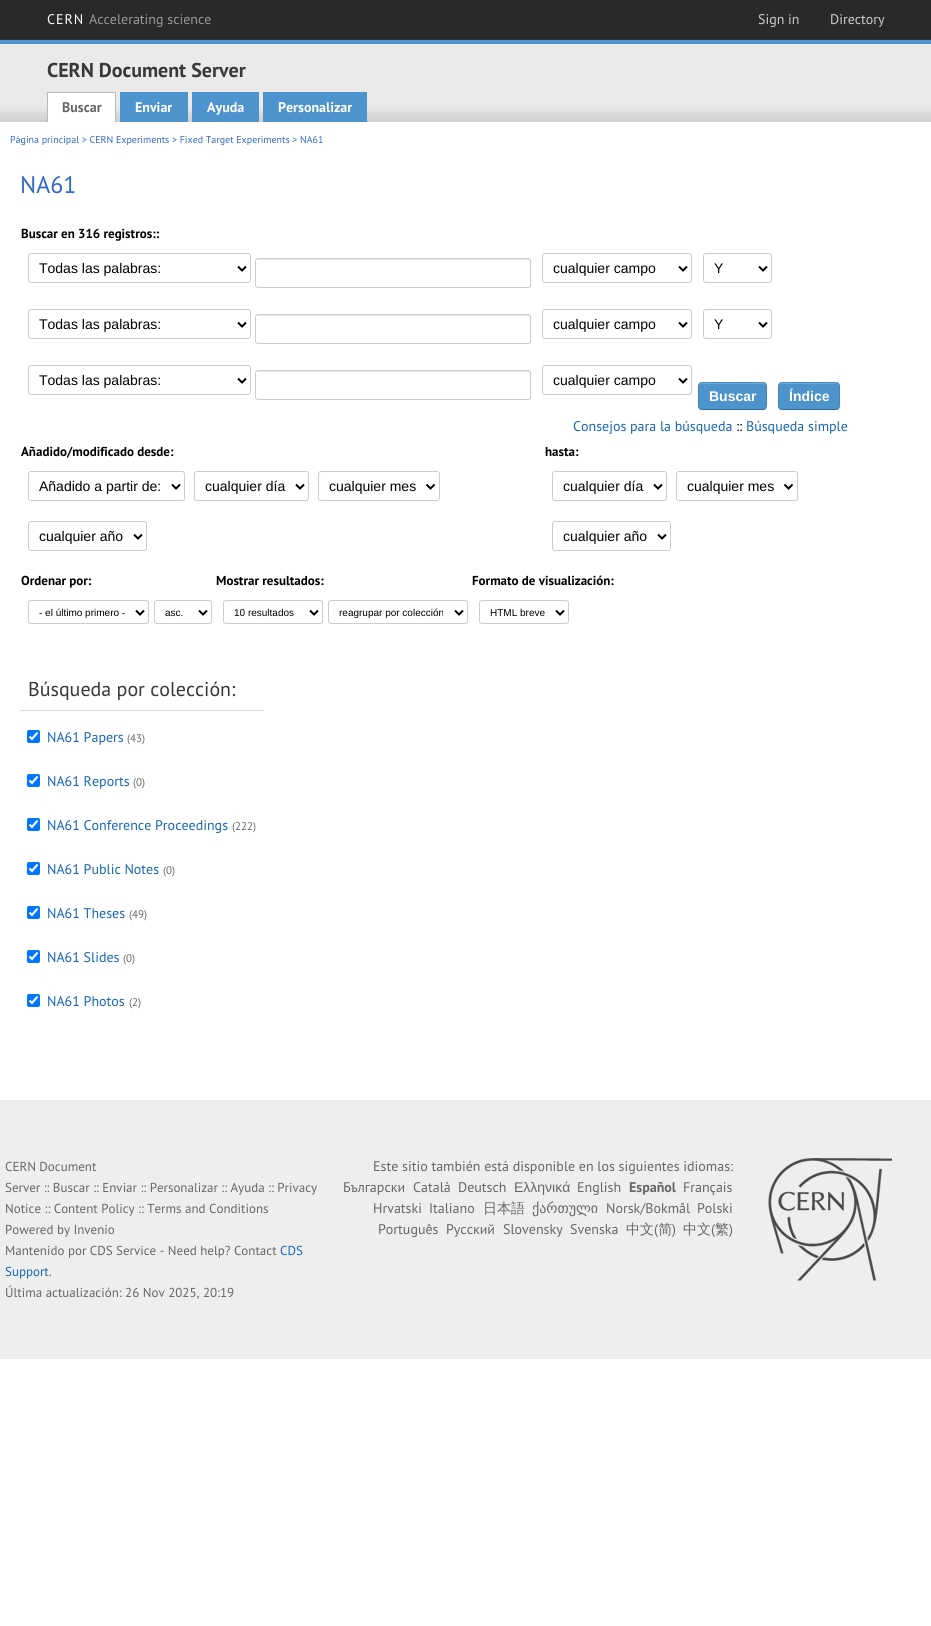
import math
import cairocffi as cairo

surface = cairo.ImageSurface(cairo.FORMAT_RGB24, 931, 1626)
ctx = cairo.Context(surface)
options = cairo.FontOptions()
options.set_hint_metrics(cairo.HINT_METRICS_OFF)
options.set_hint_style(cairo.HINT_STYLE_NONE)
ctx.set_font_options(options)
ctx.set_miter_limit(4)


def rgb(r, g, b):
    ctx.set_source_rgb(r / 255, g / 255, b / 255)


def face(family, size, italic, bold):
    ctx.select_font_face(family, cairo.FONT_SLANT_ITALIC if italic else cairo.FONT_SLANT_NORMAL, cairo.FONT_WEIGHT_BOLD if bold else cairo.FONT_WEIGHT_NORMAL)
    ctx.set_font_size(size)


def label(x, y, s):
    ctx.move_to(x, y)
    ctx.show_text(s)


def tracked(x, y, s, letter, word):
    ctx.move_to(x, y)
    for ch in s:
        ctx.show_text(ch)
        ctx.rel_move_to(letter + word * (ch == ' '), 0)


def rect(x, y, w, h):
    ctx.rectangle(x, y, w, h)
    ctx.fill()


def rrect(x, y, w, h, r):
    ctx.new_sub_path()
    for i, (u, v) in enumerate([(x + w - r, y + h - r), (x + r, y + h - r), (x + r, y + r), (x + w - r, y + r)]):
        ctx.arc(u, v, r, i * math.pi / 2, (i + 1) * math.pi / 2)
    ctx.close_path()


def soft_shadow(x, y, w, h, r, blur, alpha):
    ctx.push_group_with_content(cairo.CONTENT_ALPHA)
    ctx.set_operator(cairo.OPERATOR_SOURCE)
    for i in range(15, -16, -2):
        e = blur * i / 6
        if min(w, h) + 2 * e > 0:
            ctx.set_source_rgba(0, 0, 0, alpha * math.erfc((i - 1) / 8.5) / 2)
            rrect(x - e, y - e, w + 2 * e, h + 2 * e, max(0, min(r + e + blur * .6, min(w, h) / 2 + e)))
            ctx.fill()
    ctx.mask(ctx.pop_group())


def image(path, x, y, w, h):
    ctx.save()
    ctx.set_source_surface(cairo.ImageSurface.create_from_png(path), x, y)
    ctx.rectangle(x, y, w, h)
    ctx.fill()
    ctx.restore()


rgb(255, 255, 255)
ctx.paint()
rgb(41, 41, 41)
rect(0, 0, 931, 39)
rgb(53, 53, 53)
rect(0, 39, 931, 1)
face('PT Sans', 14, 0, 0)
rgb(255, 255, 255)
tracked(47, 24, 'CERN', 1, 0)
rgb(153, 153, 153)
label(89, 24, 'Accelerating science')
rgb(204, 204, 204)
label(758, 24, 'Sign in')
label(830, 24, 'Directory')
rgb(234, 234, 234)
rect(0, 44, 931, 78)
image('image0.png', 0, 108, 931, 14)
rgb(77, 148, 204)
rect(0, 40, 931, 4)
face('PT Sans', 20, 0, 1)
rgb(56, 56, 56)
label(47, 77, 'CERN Document Server')
rgb(255, 255, 255)
rect(48, 93, 67, 29)
rgb(184, 184, 184)
rect(47, 92, 69, 1)
rect(115, 92, 1, 30)
rect(47, 92, 1, 30)
face('PT Sans', 14, 0, 1)
rgb(102, 102, 102)
label(62, 112, 'Buscar')
rgb(77, 148, 206)
rect(120, 92, 68, 30)
rgb(255, 255, 255)
label(135, 112, 'Enviar')
rgb(77, 148, 206)
rect(192, 92, 67, 30)
rgb(255, 255, 255)
label(207, 112, 'Ayuda')
rgb(77, 148, 206)
rect(263, 92, 104, 30)
rgb(255, 255, 255)
label(278, 112, 'Personalizar')
face('PT Sans', 10, 0, 0)
rgb(51, 102, 204)
label(10, 143, 'Página principal > CERN Experiments > Fixed Target Experiments > NA61')
face('PT Sans', 24, 0, 0)
label(20, 193, 'NA61')
face('PT Sans', 13, 0, 1)
rgb(0, 0, 0)
label(21, 238, 'Buscar en 316 registros::')
rrect(28.5, 253.5, 222, 29, 2.5)
rgb(204, 204, 204)
ctx.set_line_width(1)
ctx.stroke()
ctx.new_path()
ctx.move_to(238, 266.5)
ctx.line_to(242, 270.5)
ctx.line_to(246, 266.5)
rgb(0, 0, 0)
ctx.set_line_width(2)
ctx.stroke()
face('Liberation Sans', 14, 0, 0)
label(39, 273, 'Todas las palabras:')
rgb(236, 236, 236)
ctx.new_path()
ctx.move_to(258, 260)
ctx.line_to(528, 260)
ctx.curve_to(529, 260, 530, 261, 530, 262)
ctx.curve_to(530, 261, 530, 259, 528, 259)
ctx.line_to(258, 259)
ctx.line_to(256, 260)
ctx.line_to(256, 262)
ctx.curve_to(256, 261, 257, 260, 258, 260)
ctx.close_path()
ctx.fill()
rrect(255.5, 258.5, 275, 29, 2.5)
rgb(204, 204, 204)
ctx.set_line_width(1)
ctx.stroke()
rrect(542.5, 253.5, 149, 29, 2.5)
ctx.stroke()
ctx.new_path()
ctx.move_to(679, 266.5)
ctx.line_to(683, 270.5)
ctx.line_to(687, 266.5)
rgb(0, 0, 0)
ctx.set_line_width(2)
ctx.stroke()
label(553, 273, 'cualquier campo')
rrect(703.5, 253.5, 68, 29, 2.5)
rgb(204, 204, 204)
ctx.set_line_width(1)
ctx.stroke()
ctx.new_path()
ctx.move_to(759, 266.5)
ctx.line_to(763, 270.5)
ctx.line_to(767, 266.5)
rgb(0, 0, 0)
ctx.set_line_width(2)
ctx.stroke()
label(714, 273, 'Y')
rrect(28.5, 309.5, 222, 29, 2.5)
rgb(204, 204, 204)
ctx.set_line_width(1)
ctx.stroke()
ctx.new_path()
ctx.move_to(238, 322.5)
ctx.line_to(242, 326.5)
ctx.line_to(246, 322.5)
rgb(0, 0, 0)
ctx.set_line_width(2)
ctx.stroke()
label(39, 329, 'Todas las palabras:')
rgb(236, 236, 236)
ctx.new_path()
ctx.move_to(258, 316)
ctx.line_to(528, 316)
ctx.curve_to(529, 316, 530, 317, 530, 318)
ctx.curve_to(530, 317, 530, 315, 528, 315)
ctx.line_to(258, 315)
ctx.line_to(256, 316)
ctx.line_to(256, 318)
ctx.curve_to(256, 317, 257, 316, 258, 316)
ctx.close_path()
ctx.fill()
rrect(255.5, 314.5, 275, 29, 2.5)
rgb(204, 204, 204)
ctx.set_line_width(1)
ctx.stroke()
rrect(542.5, 309.5, 149, 29, 2.5)
ctx.stroke()
ctx.new_path()
ctx.move_to(679, 322.5)
ctx.line_to(683, 326.5)
ctx.line_to(687, 322.5)
rgb(0, 0, 0)
ctx.set_line_width(2)
ctx.stroke()
label(553, 329, 'cualquier campo')
rrect(703.5, 309.5, 68, 29, 2.5)
rgb(204, 204, 204)
ctx.set_line_width(1)
ctx.stroke()
ctx.new_path()
ctx.move_to(759, 322.5)
ctx.line_to(763, 326.5)
ctx.line_to(767, 322.5)
rgb(0, 0, 0)
ctx.set_line_width(2)
ctx.stroke()
label(714, 329, 'Y')
rrect(28.5, 365.5, 222, 29, 2.5)
rgb(204, 204, 204)
ctx.set_line_width(1)
ctx.stroke()
ctx.new_path()
ctx.move_to(238, 378.5)
ctx.line_to(242, 382.5)
ctx.line_to(246, 378.5)
rgb(0, 0, 0)
ctx.set_line_width(2)
ctx.stroke()
label(39, 385, 'Todas las palabras:')
rgb(236, 236, 236)
ctx.new_path()
ctx.move_to(258, 372)
ctx.line_to(528, 372)
ctx.curve_to(529, 372, 530, 373, 530, 374)
ctx.curve_to(530, 373, 530, 371, 528, 371)
ctx.line_to(258, 371)
ctx.line_to(256, 372)
ctx.line_to(256, 374)
ctx.curve_to(256, 373, 257, 372, 258, 372)
ctx.close_path()
ctx.fill()
rrect(255.5, 370.5, 275, 29, 2.5)
rgb(204, 204, 204)
ctx.set_line_width(1)
ctx.stroke()
rrect(542.5, 365.5, 149, 29, 2.5)
ctx.stroke()
ctx.new_path()
ctx.move_to(679, 378.5)
ctx.line_to(683, 382.5)
ctx.line_to(687, 378.5)
rgb(0, 0, 0)
ctx.set_line_width(2)
ctx.stroke()
label(553, 385, 'cualquier campo')
rgb(0, 0, 0)
soft_shadow(698, 383, 69, 28, 4, 1, 0.05)
rgb(77, 148, 204)
rrect(698, 382, 69, 28, 4)
ctx.fill()
rgb(113, 169, 214)
ctx.new_path()
ctx.move_to(702, 384)
ctx.line_to(763, 384)
ctx.curve_to(765, 384, 766, 385, 766, 387)
ctx.curve_to(766, 380, 757, 383, 753, 383)
ctx.line_to(712, 383)
ctx.curve_to(708, 383, 699, 380, 699, 387)
ctx.curve_to(699, 385, 700, 384, 702, 384)
ctx.close_path()
ctx.fill()
ctx.new_path()
ctx.move_to(765.5, 408.5)
ctx.line_to(763.5, 409.5)
ctx.line_to(701.5, 409.5)
ctx.line_to(699.5, 408.5)
ctx.set_source_rgba(0, 0, 0, 0.25)
ctx.set_line_width(1)
ctx.stroke()
ctx.new_path()
ctx.move_to(699.5, 408.5)
ctx.curve_to(697.5, 406, 698.5, 398.5, 698.5, 396)
ctx.curve_to(698.5, 381, 696.5, 382.5, 712, 382.5)
ctx.line_to(753, 382.5)
ctx.curve_to(768.5, 382.5, 766.5, 381, 766.5, 396)
ctx.curve_to(766.5, 398.5, 767.5, 406, 765.5, 408.5)
ctx.set_source_rgba(0, 0, 0, 0.1)
ctx.stroke()
face('Liberation Sans', 14, 0, 1)
rgb(255, 255, 255)
label(709, 401, 'Buscar')
rgb(0, 0, 0)
soft_shadow(778, 383, 62, 28, 4, 1, 0.05)
rgb(77, 148, 204)
rrect(778, 382, 62, 28, 4)
ctx.fill()
rgb(113, 169, 214)
ctx.new_path()
ctx.move_to(782, 384)
ctx.line_to(836, 384)
ctx.curve_to(838, 384, 839, 385, 839, 387)
ctx.curve_to(839, 381, 831, 383, 827, 383)
ctx.line_to(791, 383)
ctx.curve_to(787, 383, 779, 381, 779, 387)
ctx.curve_to(779, 385, 780, 384, 782, 384)
ctx.close_path()
ctx.fill()
ctx.new_path()
ctx.move_to(838.5, 408.5)
ctx.line_to(836.5, 409.5)
ctx.line_to(781.5, 409.5)
ctx.line_to(779.5, 408.5)
ctx.set_source_rgba(0, 0, 0, 0.25)
ctx.stroke()
ctx.new_path()
ctx.move_to(779.5, 408.5)
ctx.curve_to(777.5, 406, 778.5, 398.5, 778.5, 396)
ctx.curve_to(778.5, 381.5, 776.5, 382.5, 791, 382.5)
ctx.line_to(827, 382.5)
ctx.curve_to(841.5, 382.5, 839.5, 381.5, 839.5, 396)
ctx.curve_to(839.5, 398.5, 840.5, 406, 838.5, 408.5)
ctx.set_source_rgba(0, 0, 0, 0.1)
ctx.stroke()
rgb(255, 255, 255)
label(789, 401, 'Índice')
face('PT Sans', 14, 0, 0)
rgb(21, 101, 186)
label(573, 431, 'Consejos para la búsqueda')
rgb(0, 0, 0)
label(736, 431, '::')
rgb(21, 101, 186)
label(746, 431, 'Búsqueda simple')
face('PT Sans', 13, 0, 1)
rgb(0, 0, 0)
label(21, 456, 'Añadido/modificado desde:')
label(545, 456, 'hasta:')
rrect(28.5, 471.5, 156, 29, 2.5)
rgb(204, 204, 204)
ctx.stroke()
ctx.new_path()
ctx.move_to(172, 484.5)
ctx.line_to(176, 488.5)
ctx.line_to(180, 484.5)
rgb(0, 0, 0)
ctx.set_line_width(2)
ctx.stroke()
face('Liberation Sans', 14, 0, 0)
label(39, 491, 'Añadido a partir de:')
rrect(194.5, 471.5, 114, 29, 2.5)
rgb(204, 204, 204)
ctx.set_line_width(1)
ctx.stroke()
ctx.new_path()
ctx.move_to(296, 484.5)
ctx.line_to(300, 488.5)
ctx.line_to(304, 484.5)
rgb(0, 0, 0)
ctx.set_line_width(2)
ctx.stroke()
label(205, 491, 'cualquier día')
rrect(318.5, 471.5, 121, 29, 2.5)
rgb(204, 204, 204)
ctx.set_line_width(1)
ctx.stroke()
ctx.new_path()
ctx.move_to(426.5, 484.5)
ctx.line_to(430.5, 488.5)
ctx.line_to(434.5, 484.5)
rgb(0, 0, 0)
ctx.set_line_width(2)
ctx.stroke()
label(329, 491, 'cualquier mes')
rrect(28.5, 521.5, 118, 29, 2.5)
rgb(204, 204, 204)
ctx.set_line_width(1)
ctx.stroke()
ctx.new_path()
ctx.move_to(134, 534.5)
ctx.line_to(138, 538.5)
ctx.line_to(142, 534.5)
rgb(0, 0, 0)
ctx.set_line_width(2)
ctx.stroke()
label(39, 541, 'cualquier año')
rrect(552.5, 471.5, 114, 29, 2.5)
rgb(204, 204, 204)
ctx.set_line_width(1)
ctx.stroke()
ctx.new_path()
ctx.move_to(654, 484.5)
ctx.line_to(658, 488.5)
ctx.line_to(662, 484.5)
rgb(0, 0, 0)
ctx.set_line_width(2)
ctx.stroke()
label(563, 491, 'cualquier día')
rrect(676.5, 471.5, 121, 29, 2.5)
rgb(204, 204, 204)
ctx.set_line_width(1)
ctx.stroke()
ctx.new_path()
ctx.move_to(784.5, 484.5)
ctx.line_to(788.5, 488.5)
ctx.line_to(792.5, 484.5)
rgb(0, 0, 0)
ctx.set_line_width(2)
ctx.stroke()
label(687, 491, 'cualquier mes')
rrect(552.5, 521.5, 118, 29, 2.5)
rgb(204, 204, 204)
ctx.set_line_width(1)
ctx.stroke()
ctx.new_path()
ctx.move_to(658, 534.5)
ctx.line_to(662, 538.5)
ctx.line_to(666, 534.5)
rgb(0, 0, 0)
ctx.set_line_width(2)
ctx.stroke()
label(563, 541, 'cualquier año')
face('PT Sans', 13, 0, 1)
label(21, 585, 'Ordenar por:')
label(216, 585, 'Mostrar resultados:')
label(472, 585, 'Formato de visualización:')
rrect(28.5, 600.5, 120, 23, 2.5)
rgb(204, 204, 204)
ctx.set_line_width(1)
ctx.stroke()
ctx.new_path()
ctx.move_to(136, 610.5)
ctx.line_to(140, 614.5)
ctx.line_to(144, 610.5)
rgb(0, 0, 0)
ctx.set_line_width(2)
ctx.stroke()
face('Liberation Sans', 10, 0, 0)
label(39, 616, '- el último primero -')
rrect(154.5, 600.5, 57, 23, 2.5)
rgb(204, 204, 204)
ctx.set_line_width(1)
ctx.stroke()
ctx.new_path()
ctx.move_to(199, 610.5)
ctx.line_to(203, 614.5)
ctx.line_to(207, 610.5)
rgb(0, 0, 0)
ctx.set_line_width(2)
ctx.stroke()
label(165, 616, 'asc.')
rrect(223.5, 600.5, 99, 23, 2.5)
rgb(204, 204, 204)
ctx.set_line_width(1)
ctx.stroke()
ctx.new_path()
ctx.move_to(310, 610.5)
ctx.line_to(314, 614.5)
ctx.line_to(318, 610.5)
rgb(0, 0, 0)
ctx.set_line_width(2)
ctx.stroke()
label(234, 616, '10 resultados')
rrect(328.5, 600.5, 139, 23, 2.5)
rgb(204, 204, 204)
ctx.set_line_width(1)
ctx.stroke()
ctx.new_path()
ctx.move_to(455, 610.5)
ctx.line_to(459, 614.5)
ctx.line_to(463, 610.5)
rgb(0, 0, 0)
ctx.set_line_width(2)
ctx.stroke()
label(339, 616, 'reagrupar por colección')
rrect(479.5, 600.5, 89, 23, 2.5)
rgb(204, 204, 204)
ctx.set_line_width(1)
ctx.stroke()
ctx.new_path()
ctx.move_to(556, 610.5)
ctx.line_to(560, 614.5)
ctx.line_to(564, 610.5)
rgb(0, 0, 0)
ctx.set_line_width(2)
ctx.stroke()
label(490, 616, 'HTML breve')
rgb(221, 221, 221)
rect(20, 710, 244, 1)
face('PT Sans', 20, 0, 0)
rgb(56, 56, 56)
label(28, 696, 'Búsqueda por colección:')
rgb(0, 117, 255)
rrect(27, 730, 13, 13, 2)
ctx.fill()
ctx.new_path()
ctx.move_to(29.5, 736.5)
ctx.line_to(32, 739)
ctx.line_to(37.5, 732.5)
rgb(255, 255, 255)
ctx.set_line_width(2.1)
ctx.stroke()
face('PT Sans', 14, 0, 0)
rgb(21, 101, 186)
label(47, 742, 'NA61 Papers')
face('PT Sans', 11, 0, 0)
rgb(102, 102, 102)
label(127, 742, '(43)')
rgb(0, 117, 255)
rrect(27, 774, 13, 13, 2)
ctx.fill()
ctx.new_path()
ctx.move_to(29.5, 780.5)
ctx.line_to(32, 783)
ctx.line_to(37.5, 776.5)
rgb(255, 255, 255)
ctx.stroke()
face('PT Sans', 14, 0, 0)
rgb(21, 101, 186)
label(47, 786, 'NA61 Reports')
face('PT Sans', 11, 0, 0)
rgb(102, 102, 102)
label(133, 786, '(0)')
rgb(0, 117, 255)
rrect(27, 818, 13, 13, 2)
ctx.fill()
ctx.new_path()
ctx.move_to(29.5, 824.5)
ctx.line_to(32, 827)
ctx.line_to(37.5, 820.5)
rgb(255, 255, 255)
ctx.stroke()
face('PT Sans', 14, 0, 0)
rgb(21, 101, 186)
label(47, 830, 'NA61 Conference Proceedings')
face('PT Sans', 11, 0, 0)
rgb(102, 102, 102)
label(232, 830, '(222)')
rgb(0, 117, 255)
rrect(27, 862, 13, 13, 2)
ctx.fill()
ctx.new_path()
ctx.move_to(29.5, 868.5)
ctx.line_to(32, 871)
ctx.line_to(37.5, 864.5)
rgb(255, 255, 255)
ctx.stroke()
face('PT Sans', 14, 0, 0)
rgb(21, 101, 186)
label(47, 874, 'NA61 Public Notes')
face('PT Sans', 11, 0, 0)
rgb(102, 102, 102)
label(163, 874, '(0)')
rgb(0, 117, 255)
rrect(27, 906, 13, 13, 2)
ctx.fill()
ctx.new_path()
ctx.move_to(29.5, 912.5)
ctx.line_to(32, 915)
ctx.line_to(37.5, 908.5)
rgb(255, 255, 255)
ctx.stroke()
face('PT Sans', 14, 0, 0)
rgb(21, 101, 186)
label(47, 918, 'NA61 Theses')
face('PT Sans', 11, 0, 0)
rgb(102, 102, 102)
label(129, 918, '(49)')
rgb(0, 117, 255)
rrect(27, 950, 13, 13, 2)
ctx.fill()
ctx.new_path()
ctx.move_to(29.5, 956.5)
ctx.line_to(32, 959)
ctx.line_to(37.5, 952.5)
rgb(255, 255, 255)
ctx.stroke()
face('PT Sans', 14, 0, 0)
rgb(21, 101, 186)
label(47, 962, 'NA61 Slides')
face('PT Sans', 11, 0, 0)
rgb(102, 102, 102)
label(123, 962, '(0)')
rgb(0, 117, 255)
rrect(27, 994, 13, 13, 2)
ctx.fill()
ctx.new_path()
ctx.move_to(29.5, 1000.5)
ctx.line_to(32, 1003)
ctx.line_to(37.5, 996.5)
rgb(255, 255, 255)
ctx.stroke()
face('PT Sans', 14, 0, 0)
rgb(21, 101, 186)
label(47, 1006, 'NA61 Photos')
face('PT Sans', 11, 0, 0)
rgb(102, 102, 102)
label(129, 1006, '(2)')
rgb(238, 238, 238)
rect(0, 1100, 931, 259)
face('PT Sans', 13, 0, 0)
rgb(102, 102, 102)
label(5, 1171, 'CERN Document')
label(5, 1192, 'Server :: Buscar :: Enviar :: Personalizar :: Ayuda :: Privacy')
label(5, 1213, 'Notice :: Content Policy :: Terms and Conditions')
label(5, 1234, 'Powered by Invenio')
label(5, 1255, 'Mantenido por CDS Service - Need help? Contact')
rgb(21, 101, 186)
label(280, 1255, 'CDS')
label(5, 1276, 'Support')
rgb(102, 102, 102)
label(49, 1276, '.')
label(5, 1297, 'Última actualización: 26 Nov 2025, 20:19')
face('PT Sans', 14, 0, 0)
label(373, 1171, 'Este sitio también está disponible en los siguientes idiomas:')
label(343, 1192, 'Български')
label(413, 1192, 'Català')
label(458, 1192, 'Deutsch')
face('Liberation Sans', 14, 0, 0)
label(514, 1192, 'Ελληνικά')
face('PT Sans', 14, 0, 0)
label(577, 1192, 'English')
face('PT Sans', 14, 0, 1)
label(629, 1192, 'Español')
face('PT Sans', 14, 0, 0)
label(683, 1192, 'Français')
label(373, 1213, 'Hrvatski')
label(429, 1213, 'Italiano')
face('WenQuanYi Zen Hei Medium', 14, 0, 0)
label(483, 1213, '日本語')
face('DejaVu Sans', 14, 0, 0)
label(532, 1213, 'ქართული')
face('PT Sans', 14, 0, 0)
label(606, 1213, 'Norsk/Bokmål')
label(697, 1213, 'Polski')
label(378, 1234, 'Português')
label(446, 1234, 'Русский')
label(503, 1234, 'Slovensky')
label(570, 1234, 'Svenska')
face('WenQuanYi Zen Hei Medium', 14, 0, 0)
label(626, 1234, '中文 简')
label(683, 1234, '中文')
face('PT Sans', 14, 0, 0)
label(711, 1234, '(')
face('WenQuanYi Zen Hei Medium', 14, 0, 0)
label(715, 1234, '繁')
face('PT Sans', 14, 0, 0)
label(654, 1234, '(')
label(672, 1234, ')')
label(729, 1234, ')')
image('image1.png', 768, 1158, 124, 123)
surface.write_to_png('render.png')
